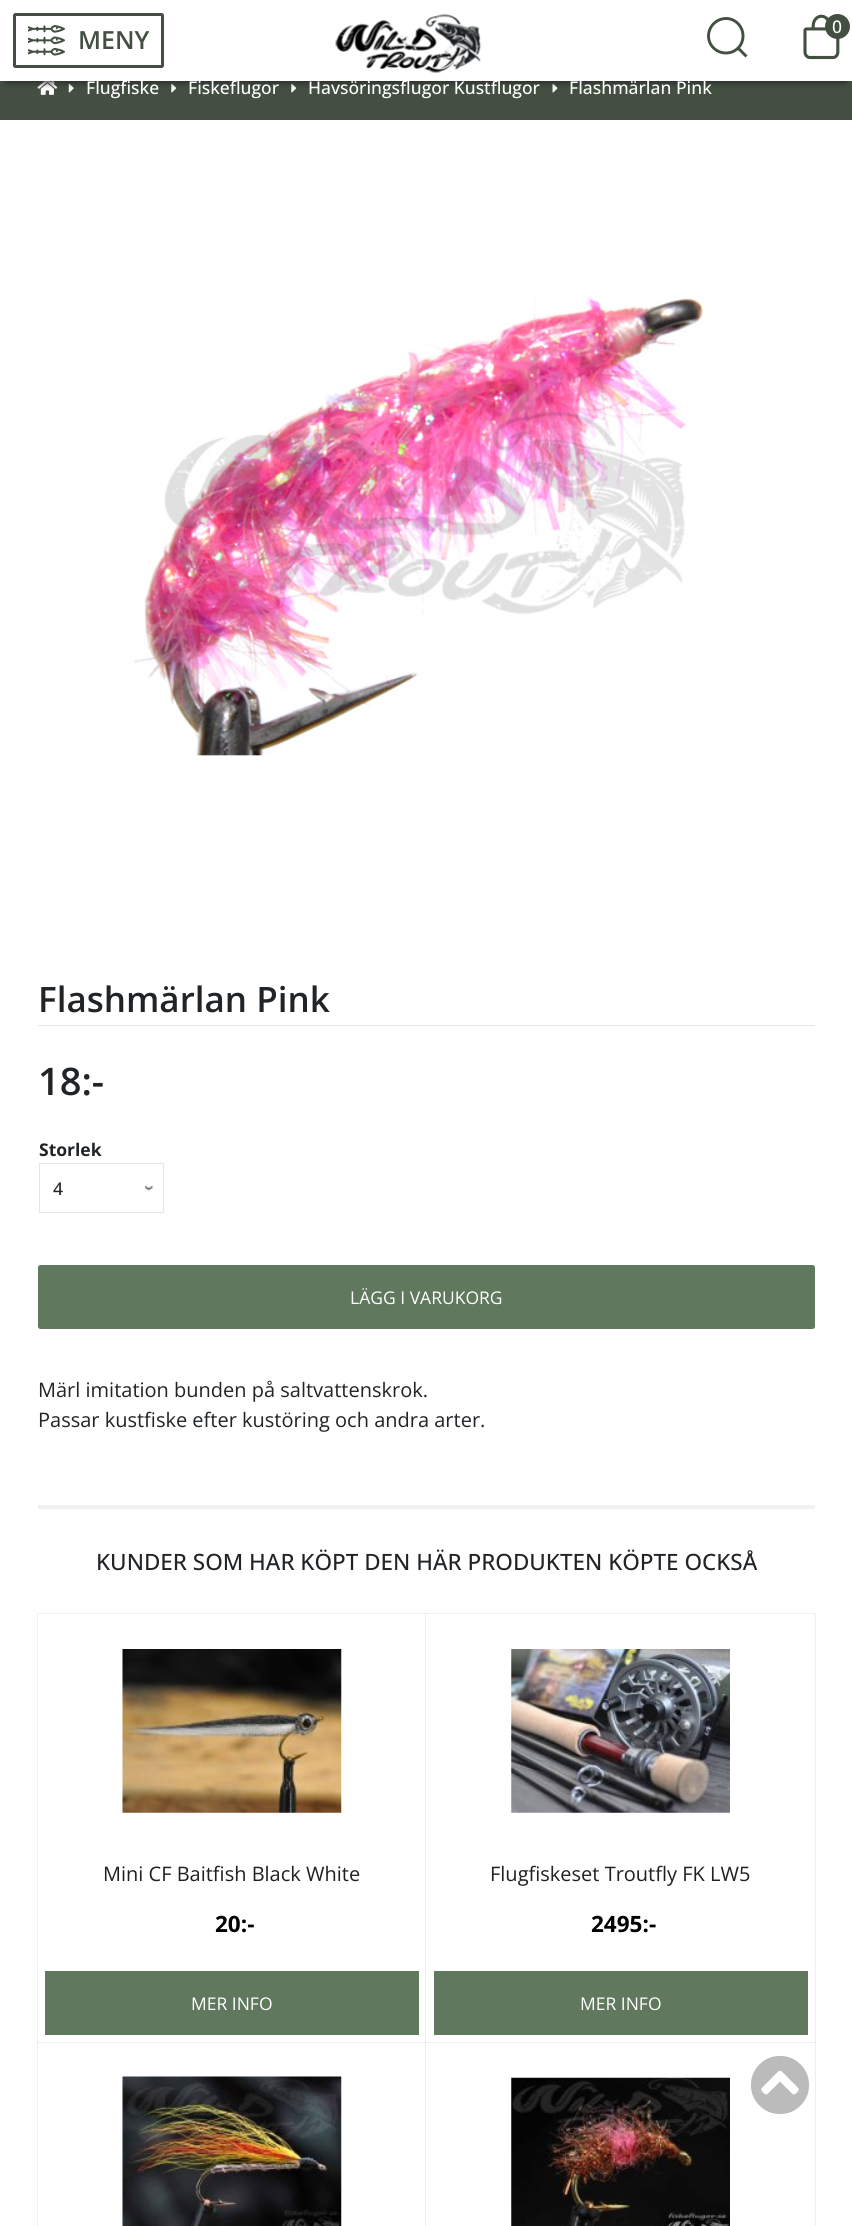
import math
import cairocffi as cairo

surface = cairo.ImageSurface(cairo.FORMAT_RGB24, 852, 2226)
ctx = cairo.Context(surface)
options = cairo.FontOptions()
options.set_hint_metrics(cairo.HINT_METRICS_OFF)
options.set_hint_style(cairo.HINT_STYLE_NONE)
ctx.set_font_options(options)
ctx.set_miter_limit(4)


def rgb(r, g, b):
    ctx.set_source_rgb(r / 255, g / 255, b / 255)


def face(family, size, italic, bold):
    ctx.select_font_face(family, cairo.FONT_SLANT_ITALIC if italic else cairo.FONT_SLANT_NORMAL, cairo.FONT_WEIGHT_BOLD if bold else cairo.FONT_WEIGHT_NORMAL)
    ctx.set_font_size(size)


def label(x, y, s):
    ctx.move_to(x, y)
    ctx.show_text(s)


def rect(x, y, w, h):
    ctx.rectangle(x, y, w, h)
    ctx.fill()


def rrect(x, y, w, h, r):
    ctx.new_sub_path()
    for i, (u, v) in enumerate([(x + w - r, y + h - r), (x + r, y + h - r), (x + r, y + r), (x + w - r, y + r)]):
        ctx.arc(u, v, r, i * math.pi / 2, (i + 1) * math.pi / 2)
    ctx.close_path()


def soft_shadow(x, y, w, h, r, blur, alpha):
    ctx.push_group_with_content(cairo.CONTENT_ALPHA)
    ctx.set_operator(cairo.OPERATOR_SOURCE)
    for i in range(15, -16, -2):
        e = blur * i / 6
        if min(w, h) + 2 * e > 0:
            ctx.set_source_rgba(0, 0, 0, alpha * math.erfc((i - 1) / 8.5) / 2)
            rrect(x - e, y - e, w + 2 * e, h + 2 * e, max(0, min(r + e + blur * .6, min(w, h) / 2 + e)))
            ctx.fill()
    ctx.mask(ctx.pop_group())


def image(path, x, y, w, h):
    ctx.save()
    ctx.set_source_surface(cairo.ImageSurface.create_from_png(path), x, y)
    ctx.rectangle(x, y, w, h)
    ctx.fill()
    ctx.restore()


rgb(255, 255, 255)
ctx.paint()
rgb(66, 79, 65)
rect(0, 81, 852, 39)
image('image3.png', 37, 81, 21, 14)
image('image4.png', 68, 83, 6, 10)
image('image5.png', 171, 83, 6, 10)
image('image5.png', 291, 83, 6, 10)
image('image6.png', 552, 83, 6, 10)
rgb(34, 34, 34)
soft_shadow(8, 14, 837, 66, 0, 4, 1)
rgb(255, 255, 255)
rect(0, 5, 852, 76)
ctx.save()
ctx.rectangle(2, 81, 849, 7)
ctx.clip()
rgb(34, 34, 34)
soft_shadow(8, 14, 837, 66, 0, 4, 1)
ctx.restore()
ctx.new_path()
ctx.move_to(738, 48)
ctx.line_to(746.5, 56.5)
ctx.move_to(726, 53)
ctx.curve_to(716.5, 53, 708.5, 45.5, 708.5, 36)
ctx.curve_to(708.5, 26.5, 716.5, 18.5, 726, 18.5)
ctx.curve_to(735.5, 18.5, 743, 26.5, 743, 36)
ctx.curve_to(743, 45.5, 735.5, 53, 726, 53)
ctx.close_path()
rgb(66, 79, 65)
ctx.set_line_width(2.9)
ctx.stroke()
image('image0.png', 803, 14, 37, 46)
ctx.arc(837.5, 26.5, 12.5, 0, 2 * math.pi)
ctx.fill()
face('Open Sans Medium', 17.5, 0, 0)
rgb(255, 255, 255)
label(832, 33, '0')
rrect(14.5, 14.5, 148, 52, 1)
rgb(66, 79, 65)
ctx.set_line_width(3)
ctx.stroke()
image('image1.png', 28, 25, 37, 31)
face('Open Sans SemiBold', 25, 0, 0)
label(78, 49, 'MENY')
image('image2.png', 335, 14, 146, 59)
face('Open Sans Medium', 17.5, 0, 0)
rgb(255, 255, 255)
label(86, 94, 'Flugfiske')
label(188, 94, 'Fiskeflugor')
label(308, 94, 'Havsöringsflugor Kustflugor')
label(569, 94, 'Flashmärlan Pink')
rgb(241, 241, 241)
rect(38, 1505, 777, 4)
image('image7.png', 134, 294, 570, 462)
face('Open Sans SemiBold', 35, 0, 0)
rgb(33, 36, 39)
label(38, 1012, 'Flashmärlan Pink')
rgb(229, 229, 229)
rect(38, 1025, 777, 1)
face('Open Sans SemiBold', 38, 0, 0)
rgb(33, 36, 39)
label(38, 1095, '18:-')
face('Open Sans', 17.5, 0, 1)
label(39, 1156, 'Storlek')
image('image8.png', 144, 1185, 9, 6)
ctx.rectangle(39.5, 1163.5, 124, 49)
rgb(229, 229, 229)
ctx.set_line_width(1)
ctx.stroke()
face('Open Sans Medium', 17.5, 0, 0)
rgb(33, 36, 39)
label(53, 1195, '4')
rgb(95, 120, 94)
rrect(38, 1265, 777, 64, 2.5)
ctx.fill()
face('Open Sans', 17.5, 0, 0)
rgb(255, 255, 255)
label(350, 1304, 'LÄGG I VARUKORG')
face('Open Sans', 20, 0, 0)
rgb(33, 36, 39)
label(38, 1397, 'Märl imitation bunden på saltvattenskrok.')
label(38, 1427, 'Passar kustfiske efter kustöring och andra arter.')
face('Open Sans Medium', 22.5, 0, 0)
label(96, 1570, 'KUNDER SOM HAR KÖPT DEN HÄR PRODUKTEN KÖPTE OCKSÅ')
rgb(188, 188, 188)
soft_shadow(38, 1614, 388, 429, 0, 0.5, 1)
rgb(255, 255, 255)
rect(38, 1614, 388, 429)
image('image9.png', 122, 1649, 220, 164)
face('Open Sans', 20, 0, 0)
rgb(32, 32, 32)
label(103, 1881, 'Mini CF Baitfish Black White')
face('Open Sans', 22.5, 0, 1)
rgb(0, 0, 0)
label(215, 1932, '20:-')
rgb(95, 120, 94)
rect(45, 1971, 374, 64)
face('Open Sans', 17.5, 0, 0)
rgb(255, 255, 255)
label(191, 2010, 'MER INFO')
rgb(188, 188, 188)
soft_shadow(426, 1614, 389, 429, 0, 0.5, 1)
rgb(255, 255, 255)
rect(426, 1614, 389, 429)
image('image10.png', 511, 1649, 219, 164)
face('Open Sans', 20, 0, 0)
rgb(32, 32, 32)
label(490, 1881, 'Flugfiskeset Troutfly FK LW5')
face('Open Sans', 22.5, 0, 1)
rgb(0, 0, 0)
label(591, 1932, '2495:-')
rgb(95, 120, 94)
rect(434, 1971, 374, 64)
face('Open Sans', 17.5, 0, 0)
rgb(255, 255, 255)
label(580, 2010, 'MER INFO')
rgb(188, 188, 188)
soft_shadow(38, 2043, 388, 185, 0, 0.5, 1)
rgb(255, 255, 255)
rect(38, 2043, 388, 183)
image('image11.png', 122, 2076, 220, 150)
rgb(188, 188, 188)
soft_shadow(426, 2043, 389, 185, 0, 0.5, 1)
rgb(255, 255, 255)
rect(426, 2043, 389, 183)
image('image12.png', 511, 2077, 219, 149)
image('image13.png', 751, 2056, 58, 58)
surface.write_to_png('render.png')
